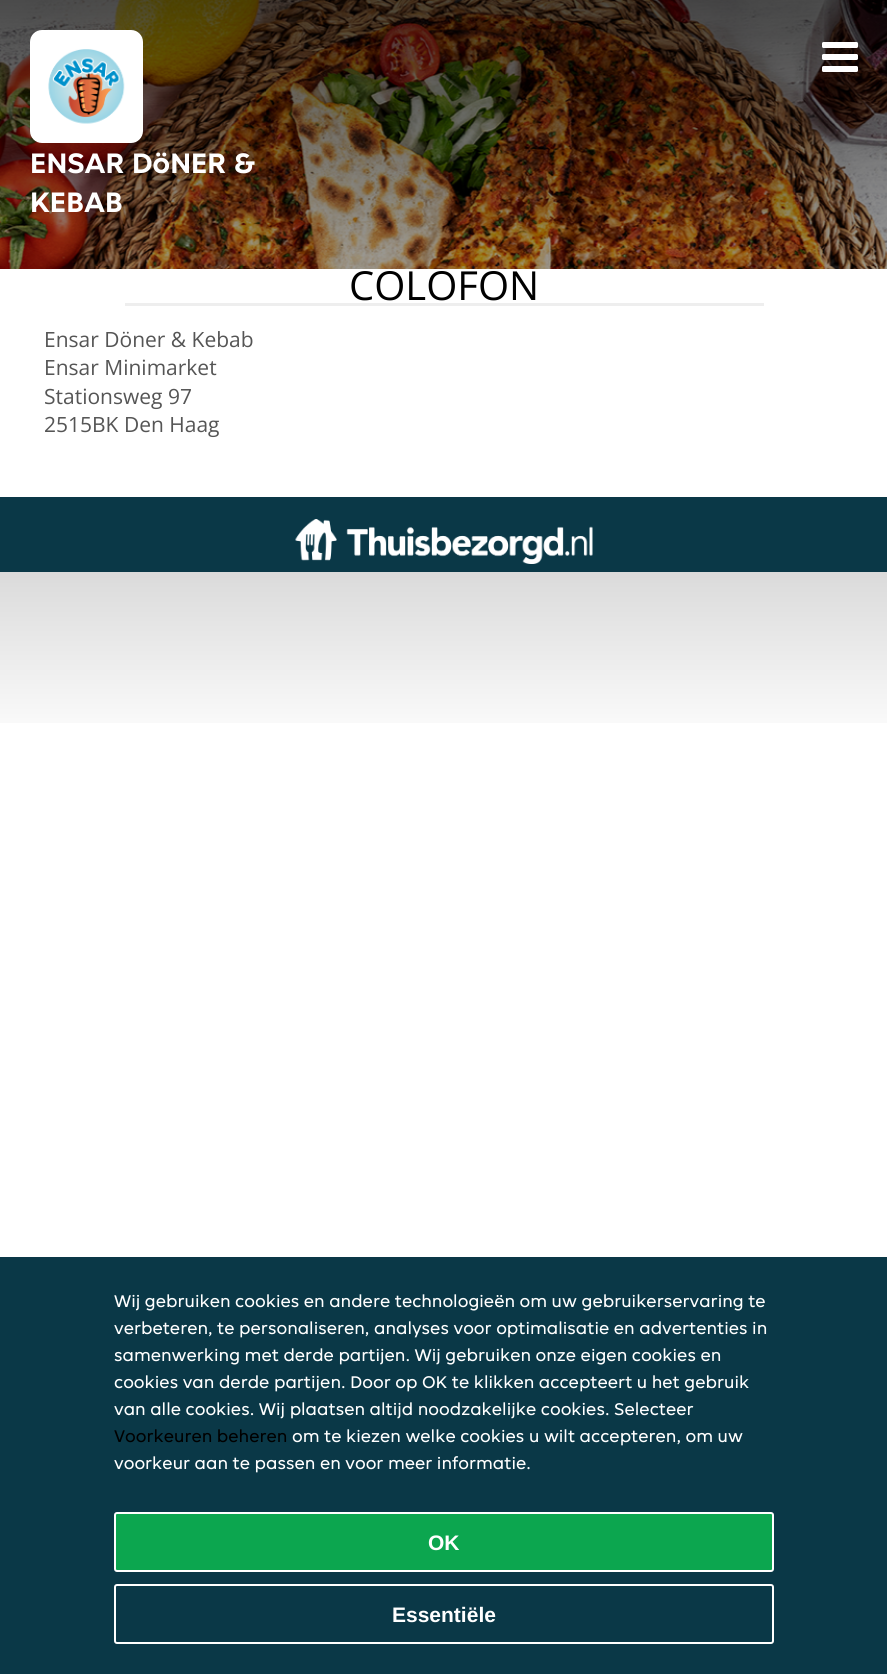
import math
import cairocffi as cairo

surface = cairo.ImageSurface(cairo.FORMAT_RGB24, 887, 1674)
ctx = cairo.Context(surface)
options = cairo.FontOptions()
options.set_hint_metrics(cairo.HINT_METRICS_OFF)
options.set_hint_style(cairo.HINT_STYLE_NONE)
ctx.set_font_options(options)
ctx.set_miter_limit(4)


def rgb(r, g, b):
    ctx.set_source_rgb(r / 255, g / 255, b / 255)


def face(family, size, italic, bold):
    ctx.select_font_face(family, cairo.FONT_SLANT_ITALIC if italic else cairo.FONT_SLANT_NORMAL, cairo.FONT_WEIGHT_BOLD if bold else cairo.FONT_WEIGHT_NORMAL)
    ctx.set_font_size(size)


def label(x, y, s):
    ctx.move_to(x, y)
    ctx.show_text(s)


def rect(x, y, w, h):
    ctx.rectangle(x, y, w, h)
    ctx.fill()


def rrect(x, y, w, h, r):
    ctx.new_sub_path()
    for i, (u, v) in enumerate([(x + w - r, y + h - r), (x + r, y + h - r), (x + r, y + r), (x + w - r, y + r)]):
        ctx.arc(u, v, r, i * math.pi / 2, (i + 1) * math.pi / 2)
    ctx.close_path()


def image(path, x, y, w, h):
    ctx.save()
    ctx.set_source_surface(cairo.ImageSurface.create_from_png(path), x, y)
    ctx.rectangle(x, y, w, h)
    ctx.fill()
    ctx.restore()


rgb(255, 255, 255)
ctx.paint()
image('image0.png', 0, 0, 887, 269)
gradient = cairo.LinearGradient(444, 0, 444, 750)
gradient.add_color_stop_rgba(0, 0, 0, 0, 0.7)
gradient.add_color_stop_rgba(0.33, 0, 0, 0, 0.4)
gradient.add_color_stop_rgba(0.67, 0, 0, 0, 0.2)
gradient.add_color_stop_rgba(1, 0, 0, 0, 0)
ctx.set_source(gradient)
rect(0, 0, 887, 723)
image('image1.png', 822, 42, 36, 30)
rgb(255, 255, 255)
rrect(30, 30, 113, 113, 12)
ctx.fill()
image('image2.png', 48, 49, 77, 75)
face('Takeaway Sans', 30, 0, 1)
label(30, 173, 'ENSAR DöNER &')
label(30, 212, 'KEBAB')
rect(0, 269, 887, 228)
face('Open Sans', 40, 0, 0)
rgb(0, 0, 0)
label(349, 300, 'COLOFON')
rgb(238, 238, 238)
rect(125, 303, 639, 3)
face('Open Sans', 21, 0, 0)
rgb(85, 85, 85)
label(44, 347, 'Ensar Döner & Kebab')
label(44, 375, 'Ensar Minimarket')
label(44, 404, 'Stationsweg 97')
label(44, 432, '2515BK Den Haag')
rgb(10, 56, 71)
rect(0, 497, 887, 75)
image('image3.png', 295, 519, 298, 45)
rect(0, 1257, 887, 417)
face('Takeaway Sans', 18, 0, 0)
rgb(255, 255, 255)
label(114, 1307, 'Wij gebruiken cookies en andere technologieën om uw gebruikerservaring te')
label(114, 1334, 'verbeteren, te personaliseren, analyses voor optimalisatie en advertenties in')
label(114, 1361, 'samenwerking met derde partijen. Wij gebruiken onze eigen cookies en')
label(114, 1388, 'cookies van derde partijen. Door op OK te klikken accepteert u het gebruik')
label(114, 1415, 'van alle cookies. Wij plaatsen altijd noodzakelijke cookies. Selecteer')
rgb(0, 0, 0)
label(114, 1442, 'Voorkeuren beheren')
rgb(255, 255, 255)
label(292, 1442, 'om te kiezen welke cookies u wilt accepteren, om uw')
label(114, 1469, 'voorkeur aan te passen en voor meer informatie.')
rgb(12, 166, 79)
rrect(115, 1513, 658, 58, 2)
ctx.fill_preserve()
rgb(255, 255, 255)
ctx.stroke()
face('Liberation Sans', 21, 0, 1)
label(428, 1550, 'OK')
rrect(115, 1585, 658, 58, 2)
ctx.stroke()
label(392, 1622, 'Essentiële')
surface.write_to_png('render.png')
